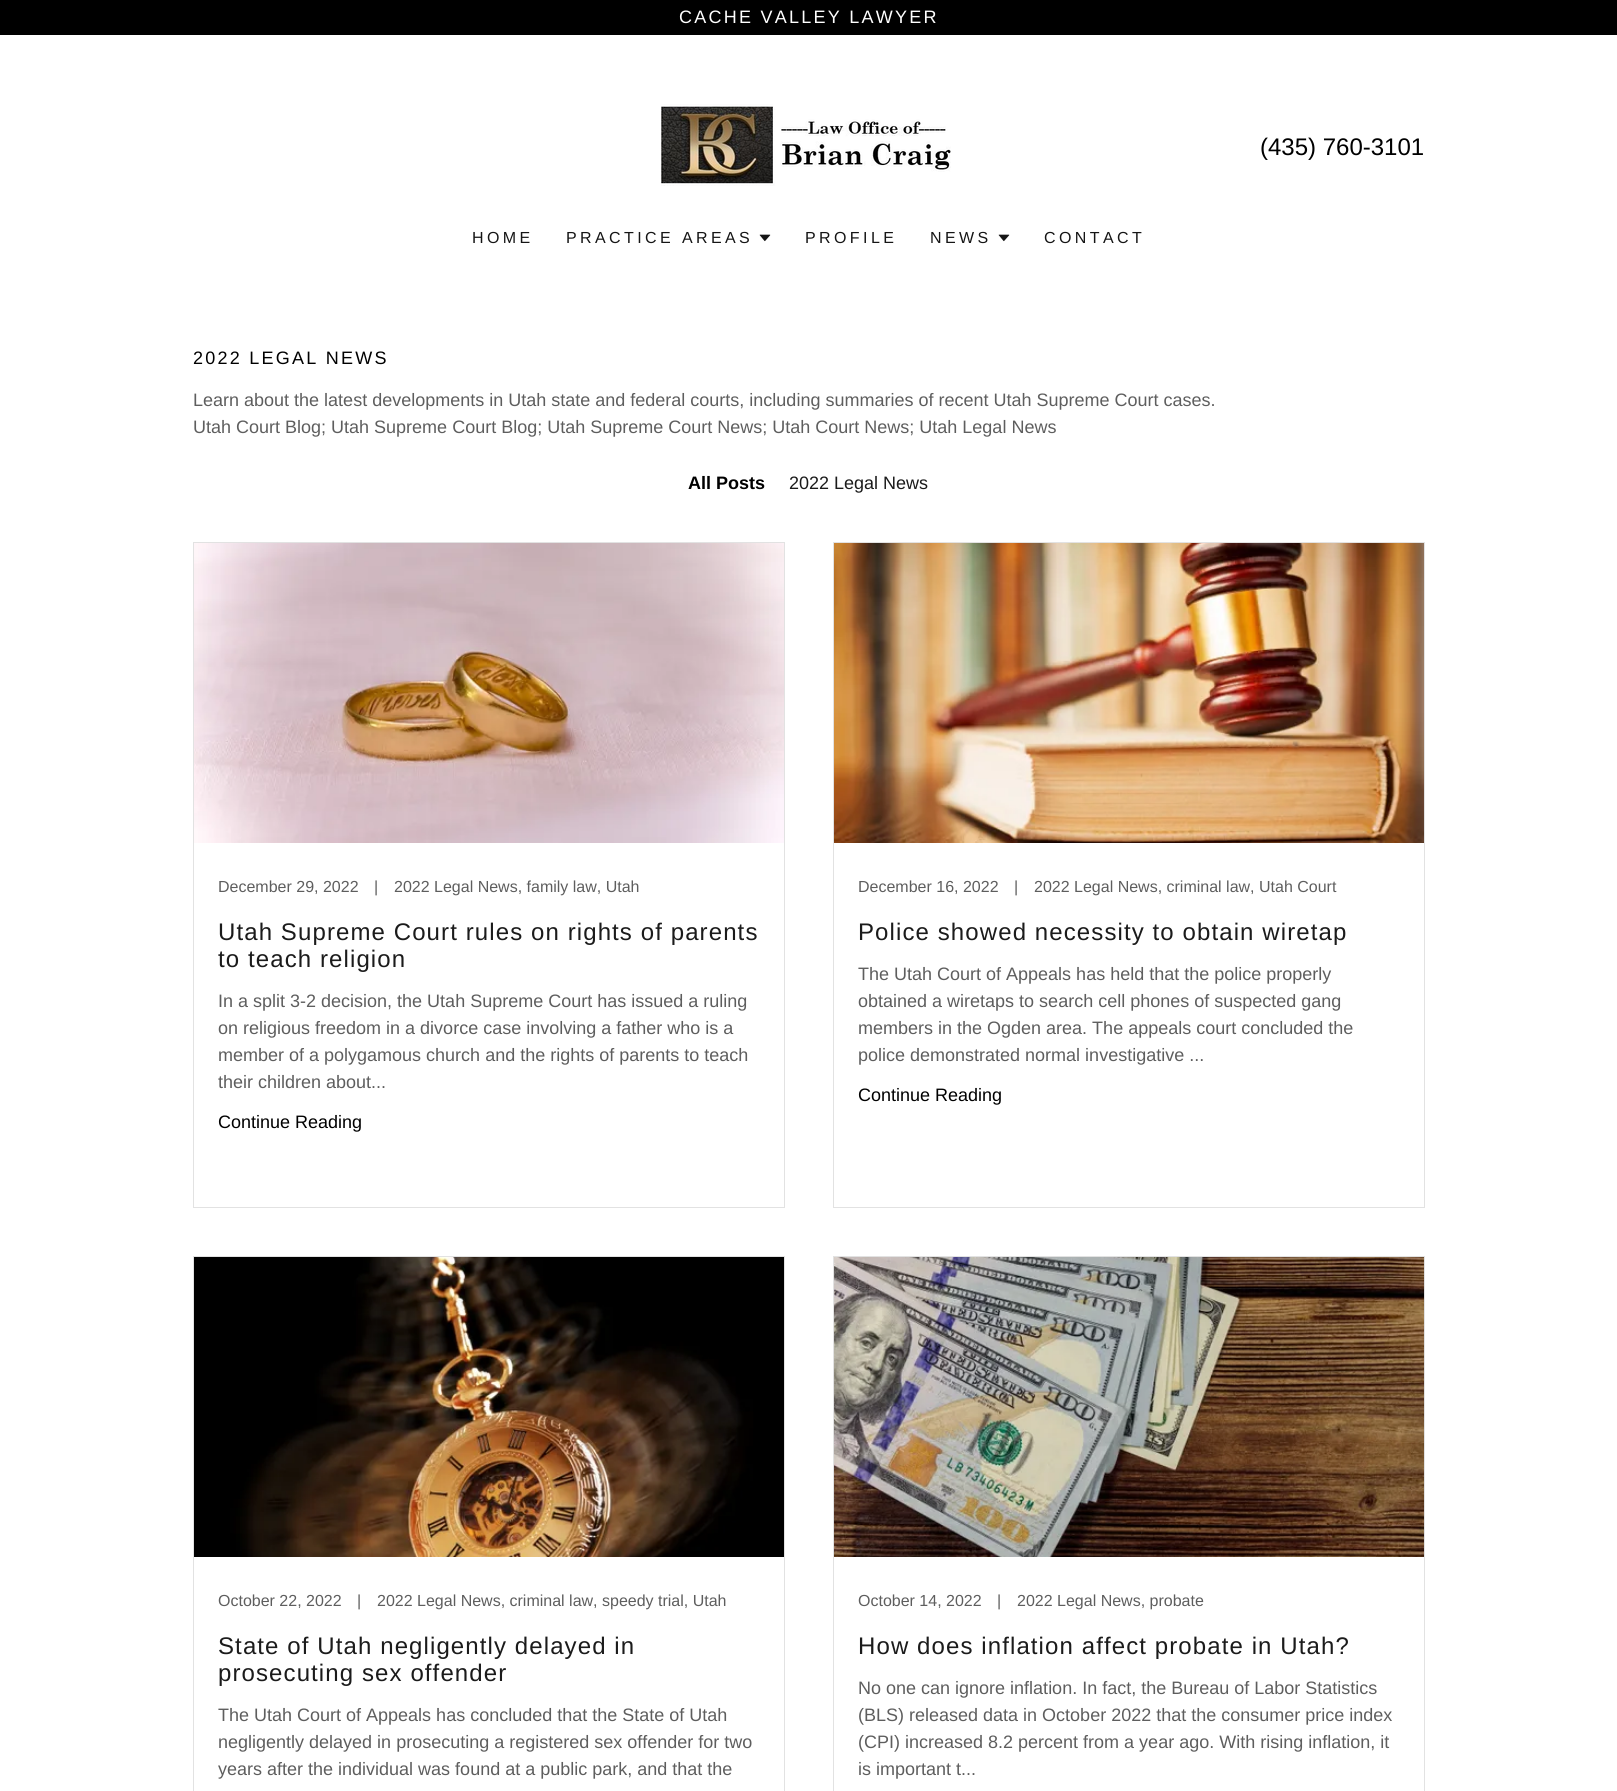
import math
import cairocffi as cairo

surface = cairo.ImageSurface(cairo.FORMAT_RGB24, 1617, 1791)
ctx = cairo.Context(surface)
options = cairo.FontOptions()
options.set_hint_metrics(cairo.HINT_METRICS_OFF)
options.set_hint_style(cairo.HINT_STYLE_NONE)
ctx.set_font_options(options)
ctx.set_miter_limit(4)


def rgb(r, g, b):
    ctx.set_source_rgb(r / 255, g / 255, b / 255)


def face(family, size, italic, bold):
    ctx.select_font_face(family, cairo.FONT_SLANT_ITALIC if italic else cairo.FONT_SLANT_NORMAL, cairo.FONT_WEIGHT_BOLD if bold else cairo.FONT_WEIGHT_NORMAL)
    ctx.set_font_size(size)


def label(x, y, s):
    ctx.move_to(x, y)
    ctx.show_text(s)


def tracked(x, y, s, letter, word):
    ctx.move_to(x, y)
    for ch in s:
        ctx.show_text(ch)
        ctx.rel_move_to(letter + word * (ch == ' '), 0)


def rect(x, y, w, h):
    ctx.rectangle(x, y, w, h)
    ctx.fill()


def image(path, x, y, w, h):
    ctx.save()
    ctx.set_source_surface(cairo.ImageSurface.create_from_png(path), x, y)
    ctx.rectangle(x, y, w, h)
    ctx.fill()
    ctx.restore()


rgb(255, 255, 255)
ctx.paint()
rgb(0, 0, 0)
rect(0, 0, 1617, 35)
face('Liberation Sans', 18, 0, 0)
rgb(255, 255, 255)
tracked(679, 23, 'CACHE VALLEY LAWYER', 2.25, 0)
image('image0.png', 661, 104, 290, 82)
face('Liberation Sans', 24, 0, 0)
rgb(0, 0, 0)
label(1260, 155, '(435) 760-3101')
face('Liberation Sans', 16, 0, 0)
rgb(21, 21, 21)
tracked(472, 243, 'HOME', 3.4, 0)
tracked(566, 243, 'PRACTICE AREAS', 3.4, 0)
image('image1.png', 759, 234, 12, 8)
tracked(805, 243, 'PROFILE', 3.4, 0)
tracked(930, 243, 'NEWS', 3.4, 0)
image('image1.png', 998, 234, 12, 8)
tracked(1044, 243, 'CONTACT', 3.4, 0)
face('Liberation Sans', 18, 0, 0)
rgb(0, 0, 0)
tracked(193, 364, '2022 LEGAL NEWS', 2.25, 0)
rgb(94, 94, 94)
label(193, 406, 'Learn about the latest developments in Utah state and federal courts, including summaries of recent Utah Supreme Court cases.')
label(193, 433, 'Utah Court Blog; Utah Supreme Court Blog; Utah Supreme Court News; Utah Court News; Utah Legal News')
face('Liberation Sans', 18, 0, 1)
rgb(0, 0, 0)
label(688, 489, 'All Posts')
face('Liberation Sans', 18, 0, 0)
rgb(27, 27, 27)
label(789, 489, '2022 Legal News')
ctx.rectangle(193.5, 542.5, 591, 665)
rgb(226, 226, 226)
ctx.set_line_width(1)
ctx.stroke()
image('image2.png', 194, 543, 590, 300)
face('Liberation Sans', 16, 0, 0)
rgb(94, 94, 94)
label(218, 892, 'December 29, 2022')
label(374, 892, '|')
label(394, 892, '2022 Legal News, family law, Utah')
face('Liberation Sans', 24, 0, 0)
rgb(27, 27, 27)
tracked(218, 940, 'Utah Supreme Court rules on rights of parents', 1.1, 0)
tracked(218, 967, 'to teach religion', 1.1, 0)
face('Liberation Sans', 18, 0, 0)
rgb(94, 94, 94)
label(218, 1007, 'In a split 3-2 decision, the Utah Supreme Court has issued a ruling')
label(218, 1034, 'on religious freedom in a divorce case involving a father who is a')
label(218, 1061, 'member of a polygamous church and the rights of parents to teach')
label(218, 1088, 'their children about...')
rgb(0, 0, 0)
label(218, 1128, 'Continue Reading')
ctx.rectangle(833.5, 542.5, 591, 665)
rgb(226, 226, 226)
ctx.stroke()
image('image3.png', 834, 543, 590, 300)
face('Liberation Sans', 16, 0, 0)
rgb(94, 94, 94)
label(858, 892, 'December 16, 2022')
label(1014, 892, '|')
label(1034, 892, '2022 Legal News, criminal law, Utah Court')
face('Liberation Sans', 24, 0, 0)
rgb(27, 27, 27)
tracked(858, 940, 'Police showed necessity to obtain wiretap', 1.1, 0)
face('Liberation Sans', 18, 0, 0)
rgb(94, 94, 94)
label(858, 980, 'The Utah Court of Appeals has held that the police properly')
label(858, 1007, 'obtained a wiretaps to search cell phones of suspected gang')
label(858, 1034, 'members in the Ogden area. The appeals court concluded the')
label(858, 1061, 'police demonstrated normal investigative ...')
rgb(0, 0, 0)
label(858, 1101, 'Continue Reading')
ctx.rectangle(193.5, 1256.5, 591, 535)
rgb(226, 226, 226)
ctx.stroke()
image('image4.png', 194, 1257, 590, 300)
face('Liberation Sans', 16, 0, 0)
rgb(94, 94, 94)
label(218, 1606, 'October 22, 2022')
label(357, 1606, '|')
label(377, 1606, '2022 Legal News, criminal law, speedy trial, Utah')
face('Liberation Sans', 24, 0, 0)
rgb(27, 27, 27)
tracked(218, 1654, 'State of Utah negligently delayed in', 1.1, 0)
tracked(218, 1681, 'prosecuting sex offender', 1.1, 0)
face('Liberation Sans', 18, 0, 0)
rgb(94, 94, 94)
label(218, 1721, 'The Utah Court of Appeals has concluded that the State of Utah')
label(218, 1748, 'negligently delayed in prosecuting a registered sex offender for two')
label(218, 1775, 'years after the individual was found at a public park, and that the')
ctx.rectangle(833.5, 1256.5, 591, 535)
rgb(226, 226, 226)
ctx.stroke()
image('image5.png', 834, 1257, 590, 300)
face('Liberation Sans', 16, 0, 0)
rgb(94, 94, 94)
label(858, 1606, 'October 14, 2022')
label(997, 1606, '|')
label(1017, 1606, '2022 Legal News, probate')
face('Liberation Sans', 24, 0, 0)
rgb(27, 27, 27)
tracked(858, 1654, 'How does inflation affect probate in Utah?', 1.1, 0)
face('Liberation Sans', 18, 0, 0)
rgb(94, 94, 94)
label(858, 1694, 'No one can ignore inflation. In fact, the Bureau of Labor Statistics')
label(858, 1721, '(BLS) released data in October 2022 that the consumer price index')
label(858, 1748, '(CPI) increased 8.2 percent from a year ago. With rising inflation, it')
label(858, 1775, 'is important t...')
surface.write_to_png('render.png')
